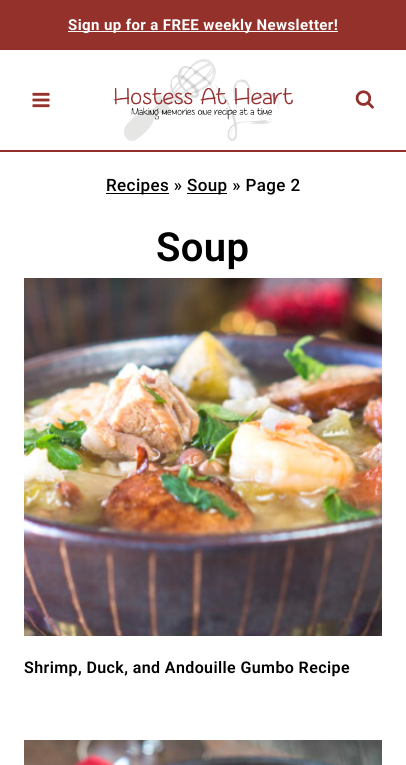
import math
import cairocffi as cairo

surface = cairo.ImageSurface(cairo.FORMAT_RGB24, 406, 765)
ctx = cairo.Context(surface)
options = cairo.FontOptions()
options.set_hint_metrics(cairo.HINT_METRICS_OFF)
options.set_hint_style(cairo.HINT_STYLE_NONE)
ctx.set_font_options(options)
ctx.set_miter_limit(4)


def rgb(r, g, b):
    ctx.set_source_rgb(r / 255, g / 255, b / 255)


def face(family, size, italic, bold):
    ctx.select_font_face(family, cairo.FONT_SLANT_ITALIC if italic else cairo.FONT_SLANT_NORMAL, cairo.FONT_WEIGHT_BOLD if bold else cairo.FONT_WEIGHT_NORMAL)
    ctx.set_font_size(size)


def tracked(x, y, s, letter, word):
    ctx.move_to(x, y)
    for ch in s:
        ctx.show_text(ch)
        ctx.rel_move_to(letter + word * (ch == ' '), 0)


def rect(x, y, w, h):
    ctx.rectangle(x, y, w, h)
    ctx.fill()


def image(path, x, y, w, h):
    ctx.save()
    ctx.set_source_surface(cairo.ImageSurface.create_from_png(path), x, y)
    ctx.rectangle(x, y, w, h)
    ctx.fill()
    ctx.restore()


rgb(255, 255, 255)
ctx.paint()
rgb(147, 49, 42)
rect(0, 0, 406, 50)
rgb(255, 255, 255)
rect(68, 31, 270, 1)
face('Roboto', 15, 0, 1)
tracked(68, 30, 'Sign up for a FREE weekly Newsletter!', 0.4, 0)
rgb(147, 49, 42)
rect(0, 150, 406, 2)
image('image0.png', 32, 92, 18, 16)
image('image1.png', 114, 59, 179, 82)
image('image2.png', 355, 90, 19, 19)
rgb(0, 0, 0)
rect(106, 193, 63, 1)
face('Roboto Medium', 17, 0, 0)
tracked(106, 191, 'Recipes »', 0.4, 0)
rect(187, 193, 40, 1)
tracked(187, 191, 'Soup » Page 2', 0.4, 0)
face('Roboto SemiBold', 40, 0, 0)
tracked(156, 261, 'Soup', 0.4, 0)
image('image3.png', 24, 278, 358, 358)
face('Roboto SemiBold', 16, 0, 0)
tracked(24, 673, 'Shrimp, Duck, and Andouille Gumbo Recipe', 0.4, 0)
image('image4.png', 24, 740, 358, 25)
surface.write_to_png('render.png')
